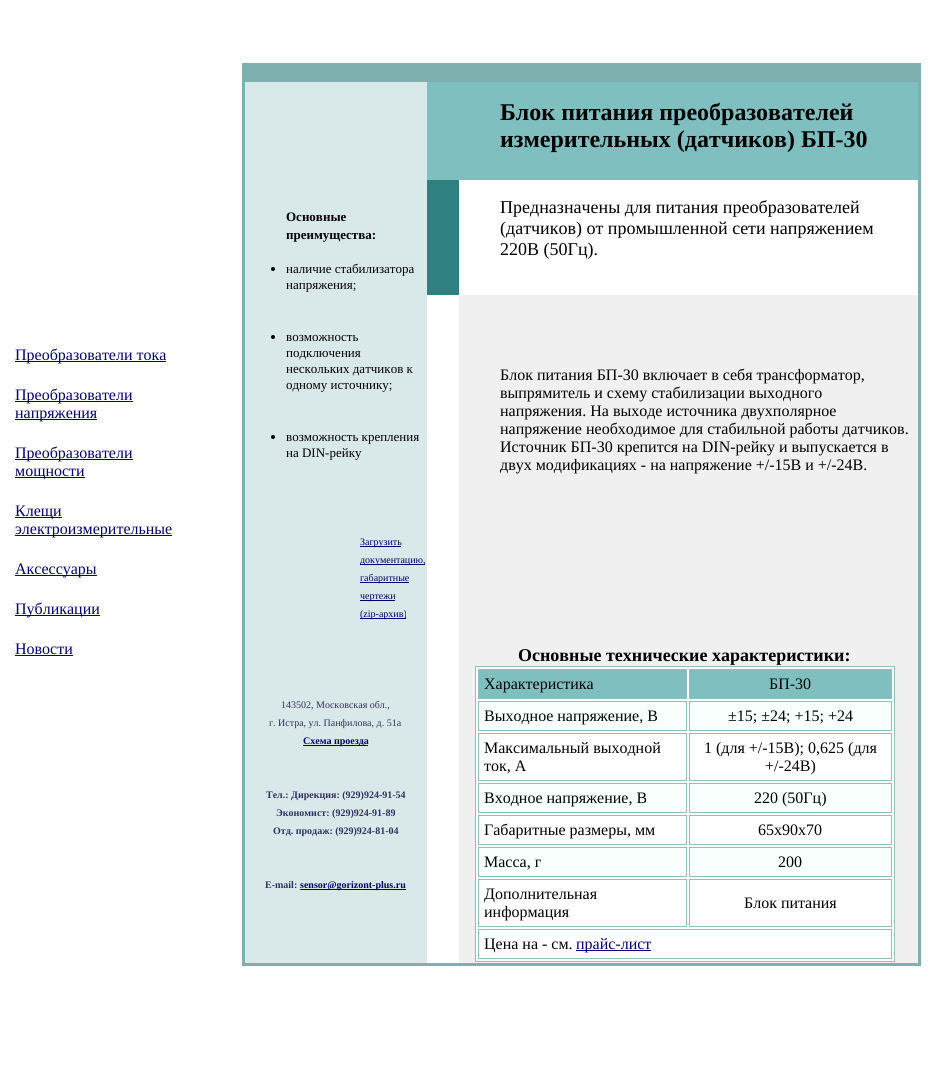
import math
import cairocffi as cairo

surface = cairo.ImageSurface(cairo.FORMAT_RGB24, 952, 1082)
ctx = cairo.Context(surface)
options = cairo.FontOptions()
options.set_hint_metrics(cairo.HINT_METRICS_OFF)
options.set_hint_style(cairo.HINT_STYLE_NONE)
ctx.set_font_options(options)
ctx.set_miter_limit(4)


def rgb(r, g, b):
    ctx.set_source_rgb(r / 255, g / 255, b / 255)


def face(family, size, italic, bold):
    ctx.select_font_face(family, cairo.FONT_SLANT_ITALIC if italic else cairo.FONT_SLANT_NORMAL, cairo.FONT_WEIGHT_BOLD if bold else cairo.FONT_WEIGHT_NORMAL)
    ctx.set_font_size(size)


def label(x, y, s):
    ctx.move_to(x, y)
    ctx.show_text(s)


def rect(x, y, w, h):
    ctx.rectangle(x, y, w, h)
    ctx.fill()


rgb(255, 255, 255)
ctx.paint()
rgb(0, 0, 112)
rect(15, 361, 151, 1)
face('Liberation Serif', 16, 0, 0)
label(15, 360, 'Преобразователи тока')
rect(15, 401, 118, 1)
label(15, 400, 'Преобразователи')
rect(15, 419, 82, 1)
label(15, 418, 'напряжения')
rect(15, 459, 118, 1)
label(15, 458, 'Преобразователи')
rect(15, 477, 70, 1)
label(15, 476, 'мощности')
rect(15, 517, 47, 1)
label(15, 516, 'Клещи')
rect(15, 535, 157, 1)
label(15, 534, 'электроизмерительные')
rect(15, 575, 82, 1)
label(15, 574, 'Аксессуары')
rect(15, 615, 85, 1)
label(15, 614, 'Публикации')
label(15, 654, 'Новости')
rect(15, 655, 58, 1)
rgb(127, 176, 176)
rect(242, 63, 679, 903)
rgb(255, 255, 255)
rect(427, 180, 491, 783)
rgb(128, 191, 191)
rect(427, 82, 491, 98)
face('Liberation Serif', 24, 0, 1)
rgb(0, 0, 0)
label(500, 120, 'Блок питания преобразователей')
label(500, 147, 'измерительных (датчиков) БП-30')
rgb(217, 233, 233)
rect(245, 82, 182, 881)
face('Liberation Serif', 13, 0, 1)
rgb(0, 0, 0)
label(286, 221, 'Основные')
label(286, 239, 'преимущества:')
ctx.new_path()
ctx.arc(273, 269, 2, 0, 2 * math.pi)
ctx.fill()
face('Liberation Serif', 13, 0, 0)
label(286, 273, 'наличие стабилизатора')
label(286, 289, 'напряжения;')
ctx.new_path()
ctx.arc(273, 337, 2, 0, 2 * math.pi)
ctx.fill()
label(286, 341, 'возможность')
label(286, 357, 'подключения')
label(286, 373, 'нескольких датчиков к')
label(286, 389, 'одному источнику;')
ctx.new_path()
ctx.arc(273, 437, 2, 0, 2 * math.pi)
ctx.fill()
label(286, 441, 'возможность крепления')
label(286, 457, 'на DIN-рейку')
rgb(0, 0, 112)
rect(360, 546, 41, 1)
face('Liberation Serif', 10, 0, 0)
label(360, 545, 'Загрузить')
rect(360, 564, 65, 1)
label(360, 563, 'документацию,')
rect(360, 582, 49, 1)
label(360, 581, 'габаритные')
rect(360, 600, 35, 1)
label(360, 599, 'чертежи')
rect(360, 618, 46, 1)
label(360, 617, '(zip-архив)')
rgb(48, 48, 96)
label(281, 708, '143502, Московская обл.,')
label(269, 726, 'г. Истра, ул. Панфилова, д. 51а')
rgb(0, 0, 112)
rect(303, 745, 65, 1)
face('Liberation Serif', 10, 0, 1)
label(303, 744, 'Схема проезда')
rgb(48, 48, 96)
label(266, 798, 'Tел.: Дирекция: (929)924-91-54')
label(276, 816, 'Экономист: (929)924-91-89')
label(273, 834, 'Отд. продаж: (929)924-81-04')
label(265, 888, 'E-mail:')
rgb(0, 0, 112)
rect(300, 889, 106, 1)
label(300, 888, 'sensor@gorizont-plus.ru')
rgb(47, 128, 128)
rect(427, 180, 32, 115)
face('Liberation Serif', 18, 0, 0)
rgb(0, 0, 0)
label(500, 213, 'Предназначены для питания преобразователей')
label(500, 234, '(датчиков) от промышленной сети напряжением')
label(500, 255, '220В (50Гц).')
rgb(240, 240, 240)
rect(459, 295, 452, 668)
face('Liberation Serif', 16, 0, 0)
rgb(0, 0, 0)
label(500, 380, 'Блок питания БП-30 включает в себя трансформатор,')
label(500, 398, 'выпрямитель и схему стабилизации выходного')
label(500, 416, 'напряжения. На выходе источника двухполярное')
label(500, 434, 'напряжение необходимое для стабильной работы датчиков.')
label(500, 452, 'Источник БП-30 крепится на DIN-рейку и выпускается в')
label(500, 470, 'двух модификациях - на напряжение +/-15В и +/-24В.')
rgb(240, 240, 240)
rect(911, 295, 7, 668)
face('Liberation Serif', 18, 0, 1)
rgb(0, 0, 0)
label(518, 661, 'Основные технические характеристики:')
rgb(255, 255, 255)
ctx.rectangle(475.5, 666.5, 419, 295)
ctx.fill_preserve()
rgb(143, 192, 192)
ctx.set_line_width(1)
ctx.stroke()
rgb(128, 191, 191)
ctx.rectangle(478.5, 669.5, 208, 29)
ctx.fill_preserve()
rgb(143, 192, 192)
ctx.stroke()
face('Liberation Serif', 16, 0, 0)
rgb(0, 0, 0)
label(484, 689, 'Характеристика')
rgb(128, 191, 191)
ctx.rectangle(689.5, 669.5, 202, 29)
ctx.fill_preserve()
rgb(143, 192, 192)
ctx.stroke()
rgb(0, 0, 0)
label(769, 689, 'БП-30')
rgb(248, 255, 252)
ctx.rectangle(478.5, 701.5, 208, 29)
ctx.fill_preserve()
rgb(143, 192, 192)
ctx.stroke()
rgb(0, 0, 0)
label(484, 721, 'Выходное напряжение, В')
rgb(248, 255, 252)
ctx.rectangle(689.5, 701.5, 202, 29)
ctx.fill_preserve()
rgb(143, 192, 192)
ctx.stroke()
rgb(0, 0, 0)
label(728, 721, '±15; ±24; +15; +24')
ctx.rectangle(478.5, 733.5, 208, 47)
rgb(143, 192, 192)
ctx.stroke()
rgb(0, 0, 0)
label(484, 753, 'Максимальный выходной')
label(484, 771, 'ток, А')
ctx.rectangle(689.5, 733.5, 202, 47)
rgb(143, 192, 192)
ctx.stroke()
rgb(0, 0, 0)
label(704, 753, '1 (для +/-15В); 0,625 (для')
label(765, 771, '+/-24В)')
rgb(248, 255, 252)
ctx.rectangle(478.5, 783.5, 208, 29)
ctx.fill_preserve()
rgb(143, 192, 192)
ctx.stroke()
rgb(0, 0, 0)
label(484, 803, 'Входное напряжение, В')
rgb(248, 255, 252)
ctx.rectangle(689.5, 783.5, 202, 29)
ctx.fill_preserve()
rgb(143, 192, 192)
ctx.stroke()
rgb(0, 0, 0)
label(754, 803, '220 (50Гц)')
ctx.rectangle(478.5, 815.5, 208, 29)
rgb(143, 192, 192)
ctx.stroke()
rgb(0, 0, 0)
label(484, 835, 'Габаритные размеры, мм')
ctx.rectangle(689.5, 815.5, 202, 29)
rgb(143, 192, 192)
ctx.stroke()
rgb(0, 0, 0)
label(758, 835, '65х90х70')
rgb(248, 255, 252)
ctx.rectangle(478.5, 847.5, 208, 29)
ctx.fill_preserve()
rgb(143, 192, 192)
ctx.stroke()
rgb(0, 0, 0)
label(484, 867, 'Масса, г')
rgb(248, 255, 252)
ctx.rectangle(689.5, 847.5, 202, 29)
ctx.fill_preserve()
rgb(143, 192, 192)
ctx.stroke()
rgb(0, 0, 0)
label(778, 867, '200')
ctx.rectangle(478.5, 879.5, 208, 47)
rgb(143, 192, 192)
ctx.stroke()
rgb(0, 0, 0)
label(484, 899, 'Дополнительная')
label(484, 917, 'информация')
ctx.rectangle(689.5, 879.5, 202, 47)
rgb(143, 192, 192)
ctx.stroke()
rgb(0, 0, 0)
label(744, 908, 'Блок питания')
ctx.rectangle(478.5, 929.5, 413, 29)
rgb(143, 192, 192)
ctx.stroke()
rgb(0, 0, 0)
label(484, 949, 'Цена на - см.')
rgb(0, 0, 112)
rect(576, 950, 75, 1)
label(576, 949, 'прайс-лист')
surface.write_to_png('render.png')
